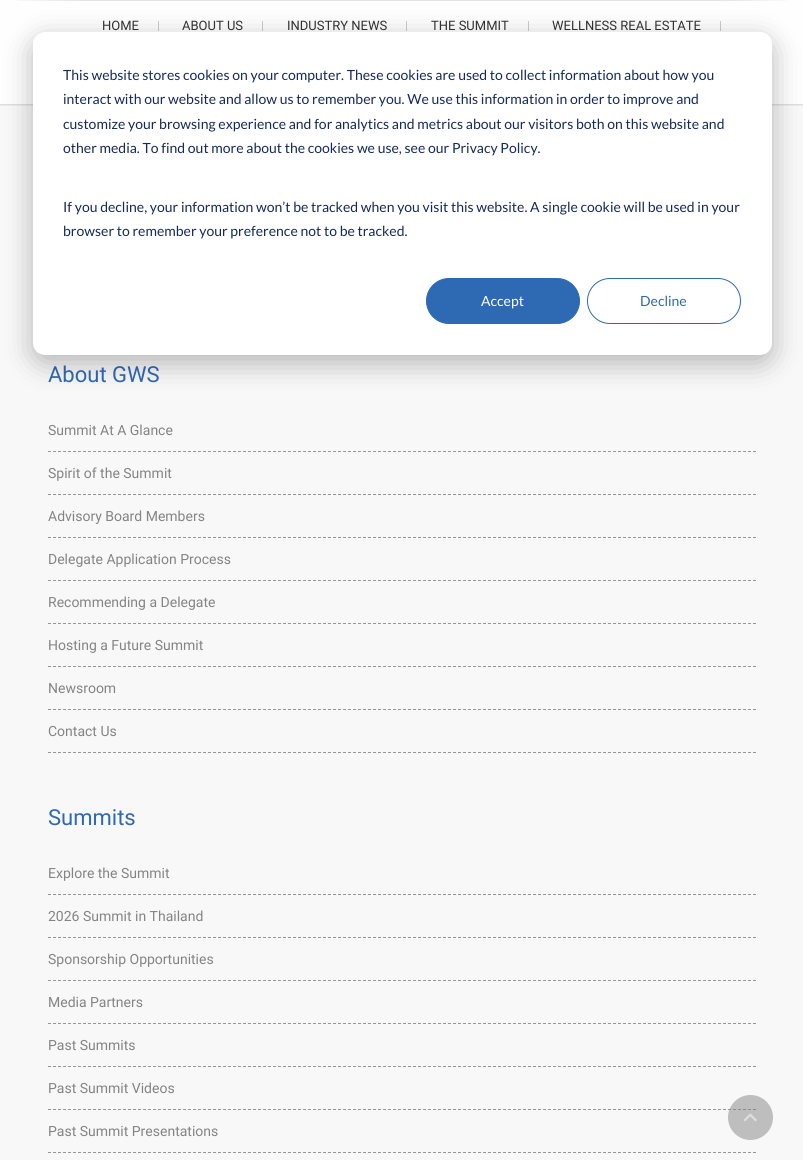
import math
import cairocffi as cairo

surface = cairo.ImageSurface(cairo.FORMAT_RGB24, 803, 1160)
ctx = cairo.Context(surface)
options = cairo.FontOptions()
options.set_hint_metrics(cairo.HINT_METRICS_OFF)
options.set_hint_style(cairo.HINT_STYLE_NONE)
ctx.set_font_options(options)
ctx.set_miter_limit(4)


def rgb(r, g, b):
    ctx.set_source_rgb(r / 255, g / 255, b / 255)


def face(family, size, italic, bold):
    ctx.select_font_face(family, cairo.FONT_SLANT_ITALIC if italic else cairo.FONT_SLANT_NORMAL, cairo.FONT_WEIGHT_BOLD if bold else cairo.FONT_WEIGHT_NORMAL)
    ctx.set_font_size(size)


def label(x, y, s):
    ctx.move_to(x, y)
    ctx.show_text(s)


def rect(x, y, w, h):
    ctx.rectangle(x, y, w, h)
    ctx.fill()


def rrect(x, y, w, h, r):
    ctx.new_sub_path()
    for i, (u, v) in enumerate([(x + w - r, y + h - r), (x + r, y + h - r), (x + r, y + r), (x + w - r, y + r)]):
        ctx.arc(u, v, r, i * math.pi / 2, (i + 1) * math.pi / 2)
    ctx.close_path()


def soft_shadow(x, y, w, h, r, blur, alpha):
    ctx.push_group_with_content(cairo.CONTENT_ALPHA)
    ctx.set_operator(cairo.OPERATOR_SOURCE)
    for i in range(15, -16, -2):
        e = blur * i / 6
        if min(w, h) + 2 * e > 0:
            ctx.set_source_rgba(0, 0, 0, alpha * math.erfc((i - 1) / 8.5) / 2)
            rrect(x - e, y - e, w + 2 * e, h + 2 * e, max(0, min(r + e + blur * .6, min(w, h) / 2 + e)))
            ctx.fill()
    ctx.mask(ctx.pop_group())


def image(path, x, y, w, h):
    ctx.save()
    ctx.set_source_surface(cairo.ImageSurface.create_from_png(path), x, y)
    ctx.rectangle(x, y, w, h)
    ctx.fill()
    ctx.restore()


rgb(248, 248, 248)
ctx.paint()
rgb(254, 254, 254)
rect(0, 0, 803, 104)
ctx.save()
ctx.rectangle(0, 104, 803, 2)
ctx.clip()
rgb(0, 0, 0)
soft_shadow(0, 1, 803, 104, 0, 1, 0.15)
ctx.restore()
gradient = cairo.LinearGradient(0, 0.5, 803, 0.5)
gradient.add_color_stop_rgba(0, 0, 0, 0, 0)
gradient.add_color_stop_rgba(0.1, 0, 0, 0, 0.1)
gradient.add_color_stop_rgba(0.9, 0, 0, 0, 0.1)
gradient.add_color_stop_rgba(1, 0, 0, 0, 0)
ctx.set_source(gradient)
rect(17, 0, 769, 1)
face('Roboto', 13, 0, 0)
rgb(51, 51, 51)
label(102, 30, 'HOME')
rgb(203, 203, 203)
rect(158, 21, 1, 10)
rgb(51, 51, 51)
label(182, 30, 'ABOUT US')
rgb(203, 203, 203)
rect(262, 21, 1, 10)
rgb(51, 51, 51)
label(287, 30, 'INDUSTRY NEWS')
rgb(203, 203, 203)
rect(406, 21, 1, 10)
rgb(51, 51, 51)
label(431, 30, 'THE SUMMIT')
rgb(203, 203, 203)
rect(528, 21, 1, 10)
rgb(51, 51, 51)
label(552, 30, 'WELLNESS REAL ESTATE')
rgb(203, 203, 203)
rect(720, 21, 1, 10)
face('Roboto', 22, 0, 0)
rgb(48, 105, 179)
label(48, 382, 'About GWS')
ctx.new_path()
ctx.move_to(48, 451.5)
ctx.line_to(756, 451.5)
rgb(149, 149, 149)
ctx.set_line_width(1)
ctx.set_dash([3, 2])
ctx.stroke()
face('Roboto', 14, 0, 0)
rgb(132, 132, 132)
label(48, 435, 'Summit At A Glance')
ctx.new_path()
ctx.move_to(48, 494.5)
ctx.line_to(756, 494.5)
rgb(149, 149, 149)
ctx.stroke()
rgb(132, 132, 132)
label(48, 478, 'Spirit of the Summit')
ctx.new_path()
ctx.move_to(48, 537.5)
ctx.line_to(756, 537.5)
rgb(149, 149, 149)
ctx.stroke()
rgb(132, 132, 132)
label(48, 521, 'Advisory Board Members')
ctx.new_path()
ctx.move_to(48, 580.5)
ctx.line_to(756, 580.5)
rgb(149, 149, 149)
ctx.stroke()
rgb(132, 132, 132)
label(48, 564, 'Delegate Application Process')
ctx.new_path()
ctx.move_to(48, 623.5)
ctx.line_to(756, 623.5)
rgb(149, 149, 149)
ctx.stroke()
rgb(132, 132, 132)
label(48, 607, 'Recommending a Delegate')
ctx.new_path()
ctx.move_to(48, 666.5)
ctx.line_to(756, 666.5)
rgb(149, 149, 149)
ctx.stroke()
rgb(132, 132, 132)
label(48, 650, 'Hosting a Future Summit')
ctx.new_path()
ctx.move_to(48, 709.5)
ctx.line_to(756, 709.5)
rgb(149, 149, 149)
ctx.stroke()
rgb(132, 132, 132)
label(48, 693, 'Newsroom')
ctx.new_path()
ctx.move_to(48, 752.5)
ctx.line_to(756, 752.5)
rgb(149, 149, 149)
ctx.stroke()
rgb(132, 132, 132)
label(48, 736, 'Contact Us')
face('Roboto', 22, 0, 0)
rgb(48, 105, 179)
label(48, 825, 'Summits')
ctx.new_path()
ctx.move_to(48, 894.5)
ctx.line_to(756, 894.5)
rgb(149, 149, 149)
ctx.stroke()
face('Roboto', 14, 0, 0)
rgb(132, 132, 132)
label(48, 878, 'Explore the Summit')
ctx.new_path()
ctx.move_to(48, 937.5)
ctx.line_to(756, 937.5)
rgb(149, 149, 149)
ctx.stroke()
rgb(132, 132, 132)
label(48, 921, '2026 Summit in Thailand')
ctx.new_path()
ctx.move_to(48, 980.5)
ctx.line_to(756, 980.5)
rgb(149, 149, 149)
ctx.stroke()
rgb(132, 132, 132)
label(48, 964, 'Sponsorship Opportunities')
ctx.new_path()
ctx.move_to(48, 1023.5)
ctx.line_to(756, 1023.5)
rgb(149, 149, 149)
ctx.stroke()
rgb(132, 132, 132)
label(48, 1007, 'Media Partners')
ctx.new_path()
ctx.move_to(48, 1066.5)
ctx.line_to(756, 1066.5)
rgb(149, 149, 149)
ctx.stroke()
rgb(132, 132, 132)
label(48, 1050, 'Past Summits')
ctx.new_path()
ctx.move_to(48, 1109.5)
ctx.line_to(756, 1109.5)
rgb(149, 149, 149)
ctx.stroke()
rgb(132, 132, 132)
label(48, 1093, 'Past Summit Videos')
ctx.new_path()
ctx.move_to(48, 1152.5)
ctx.line_to(756, 1152.5)
rgb(149, 149, 149)
ctx.stroke()
rgb(132, 132, 132)
label(48, 1136, 'Past Summit Presentations')
ctx.set_source_rgba(0.518, 0.518, 0.518, 0.5)
ctx.new_path()
ctx.arc(750.5, 1117.5, 22.5, 0, 2 * math.pi)
ctx.fill()
image('image0.png', 744, 1113, 13, 9)
rgb(0, 0, 0)
soft_shadow(33, 40, 739, 323, 12, 14, 0.28)
rgb(255, 255, 255)
rrect(33, 32, 739, 323, 12)
ctx.fill()
face('Lato', 14, 0, 0)
rgb(21, 41, 90)
label(63, 80, 'This website stores cookies on your computer. These cookies are used to collect information about how you')
label(63, 104, 'interact with our website and allow us to remember you. We use this information in order to improve and')
label(63, 129, 'customize your browsing experience and for analytics and metrics about our visitors both on this website and')
label(63, 153, 'other media. To find out more about the cookies we use, see our Privacy Policy.')
label(63, 212, 'If you decline, your information won’t be tracked when you visit this website. A single cookie will be used in your')
label(63, 236, 'browser to remember your preference not to be tracked.')
rgb(46, 106, 179)
rrect(426.5, 278.5, 153, 45, 22.5)
ctx.fill_preserve()
ctx.set_dash([])
ctx.stroke()
rgb(255, 255, 255)
label(481, 306, 'Accept')
rrect(587.5, 278.5, 153, 45, 22.5)
rgb(46, 106, 179)
ctx.stroke()
rgb(48, 105, 179)
label(640, 306, 'Decline')
surface.write_to_png('render.png')
